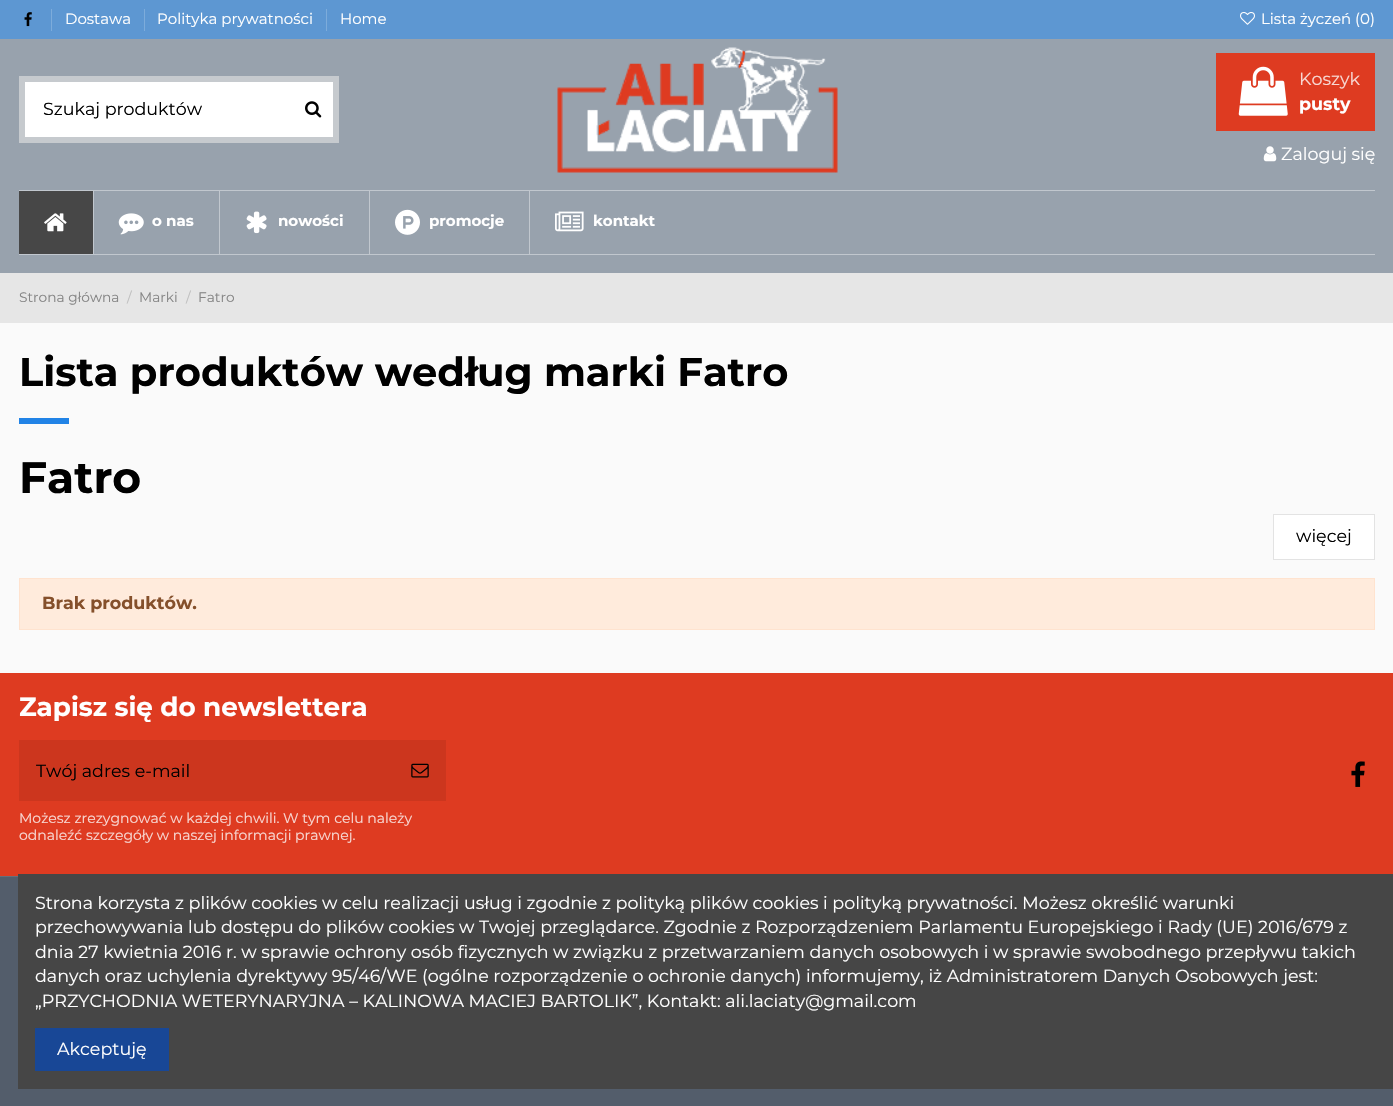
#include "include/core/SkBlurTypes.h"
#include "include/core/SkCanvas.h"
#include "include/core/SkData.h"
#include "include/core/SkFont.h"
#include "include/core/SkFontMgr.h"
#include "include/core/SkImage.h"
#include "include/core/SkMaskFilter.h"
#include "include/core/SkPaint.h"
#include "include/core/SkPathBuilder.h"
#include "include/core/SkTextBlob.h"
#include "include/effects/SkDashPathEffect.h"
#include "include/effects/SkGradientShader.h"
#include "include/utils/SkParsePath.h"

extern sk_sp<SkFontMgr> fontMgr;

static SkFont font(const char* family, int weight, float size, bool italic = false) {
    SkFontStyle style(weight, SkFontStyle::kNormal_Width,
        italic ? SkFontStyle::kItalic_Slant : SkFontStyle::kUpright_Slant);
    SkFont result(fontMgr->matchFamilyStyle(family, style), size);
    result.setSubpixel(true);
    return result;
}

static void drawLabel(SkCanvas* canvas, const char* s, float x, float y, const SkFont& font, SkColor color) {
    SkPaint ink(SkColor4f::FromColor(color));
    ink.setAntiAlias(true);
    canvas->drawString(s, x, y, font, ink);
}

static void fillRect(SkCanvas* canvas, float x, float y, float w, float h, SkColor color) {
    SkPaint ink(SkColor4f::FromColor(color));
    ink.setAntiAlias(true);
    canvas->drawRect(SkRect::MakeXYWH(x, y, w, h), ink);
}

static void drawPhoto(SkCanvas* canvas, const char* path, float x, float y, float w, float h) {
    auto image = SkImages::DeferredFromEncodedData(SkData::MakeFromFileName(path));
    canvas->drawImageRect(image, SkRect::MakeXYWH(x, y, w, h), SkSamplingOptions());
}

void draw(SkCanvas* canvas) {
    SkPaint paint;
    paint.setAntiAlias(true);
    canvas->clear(0xFFFAFAFA);
    fillRect(canvas, 0, 39, 1393, 234, 0xFF98A2AD);
    fillRect(canvas, 0, 0, 1393, 39, 0xFF5D97D2);
    drawPhoto(canvas, "assets/img1.png", 24, 12, 8, 15);
    fillRect(canvas, 51, 9, 1, 22, 0xFF7DACDB);
    SkFont font1 = font("Montserrat", 400, 15);
    drawLabel(canvas, "Dostawa", 65, 24, font1, 0xFFFFFFFF);
    fillRect(canvas, 144, 9, 1, 22, 0xFF7DACDB);
    drawLabel(canvas, "Polityka prywatności", 157, 24, font1, 0xFFFFFFFF);
    fillRect(canvas, 326, 9, 1, 22, 0xFF7DACDB);
    drawLabel(canvas, "Home", 340, 24, font1, 0xFFFFFFFF);
    drawPhoto(canvas, "assets/img2.png", 1240, 12, 15, 13);
    drawLabel(canvas, "Lista życzeń (0)", 1261, 24, font1, 0xFFFFFFFF);
    paint.setColor(0xFFFFFFFF);
    canvas->drawRect(SkRect::MakeXYWH(22, 79, 314, 61), paint);
    paint.setStroke(true);
    paint.setStrokeWidth(6);
    paint.setColor(0xFFC6CACE);
    canvas->drawRect(SkRect::MakeXYWH(22, 79, 314, 61), paint);
    SkFont font2 = font("Montserrat", 400, 17.5f);
    drawLabel(canvas, "Szukaj produktów", 43, 115, font2, 0xFF000000);
    drawPhoto(canvas, "assets/img3.png", 305, 101, 17, 17);
    drawPhoto(canvas, "assets/img4.png", 557, 47, 281, 126);
    fillRect(canvas, 1216, 53, 159, 78, 0xFFDE3B21);
    drawPhoto(canvas, "assets/img5.png", 1238, 66, 50, 50);
    drawLabel(canvas, "Koszyk", 1299, 85, font2, 0xFFF8D8D3);
    SkFont font3 = font("Montserrat", 700, 17.5f);
    drawLabel(canvas, "pusty", 1299, 110, font3, 0xFFFFFFFF);
    drawPhoto(canvas, "assets/img6.png", 1263, 146, 14, 16);
    drawLabel(canvas, "Zaloguj się", 1281, 160, font2, 0xFFFFFFFF);
    fillRect(canvas, 19, 190, 1356, 1, 0xFFC1C7CE);
    fillRect(canvas, 19, 254, 1356, 1, 0xFFC1C7CE);
    fillRect(canvas, 19, 191, 74, 63, 0xFF474747);
    drawPhoto(canvas, "assets/img7.png", 44, 213, 23, 19);
    fillRect(canvas, 93, 191, 1, 63, 0xFFC1C7CE);
    drawPhoto(canvas, "assets/img8.png", 118, 213, 26, 22);
    SkFont font4 = font("Montserrat", 700, 15);
    drawLabel(canvas, "o nas", 152, 226, font4, 0xFFFFFFFF);
    fillRect(canvas, 219, 191, 1, 63, 0xFFC1C7CE);
    drawPhoto(canvas, "assets/img9.png", 246, 211, 21, 23);
    drawLabel(canvas, "nowości", 278, 226, font4, 0xFFFFFFFF);
    fillRect(canvas, 369, 191, 1, 63, 0xFFC1C7CE);
    drawPhoto(canvas, "assets/img10.png", 395, 209, 25, 26);
    drawLabel(canvas, "promocje", 429, 226, font4, 0xFFFFFFFF);
    fillRect(canvas, 529, 191, 1, 63, 0xFFC1C7CE);
    drawPhoto(canvas, "assets/img11.png", 555, 211, 29, 21);
    drawLabel(canvas, "kontakt", 593, 226, font4, 0xFFFFFFFF);
    fillRect(canvas, 0, 273, 1393, 50, 0xFFE6E6E6);
    SkFont font5 = font("Montserrat", 400, 13.75f);
    drawLabel(canvas, "Strona główna", 19, 302, font5, 0xFF858585);
    drawLabel(canvas, "/", 127, 302, font5, 0xFFBFBFBF);
    drawLabel(canvas, "Marki", 139, 302, font5, 0xFF858585);
    drawLabel(canvas, "/", 186, 302, font5, 0xFFBFBFBF);
    drawLabel(canvas, "Fatro", 198, 302, font5, 0xFF858585);
    SkFont font6 = font("Montserrat", 700, 40);
    drawLabel(canvas, "Lista produktów według marki Fatro", 19, 386, font6, 0xFF000000);
    fillRect(canvas, 19, 418, 50, 6, 0xFF2183E6);
    SkFont font7 = font("Montserrat", 700, 44);
    drawLabel(canvas, "Fatro", 19, 493, font7, 0xFF000000);
    paint.setStroke(false);
    paint.setColor(0xFFFFFFFF);
    canvas->drawRect(SkRect::MakeXYWH(1273.5f, 514.5f, 101, 45), paint);
    paint.setStroke(true);
    paint.setStrokeWidth(1);
    paint.setColor(0xFFE3E3E3);
    canvas->drawRect(SkRect::MakeXYWH(1273.5f, 514.5f, 101, 45), paint);
    drawLabel(canvas, "więcej", 1296, 542, font2, 0xFF000000);
    paint.setStroke(false);
    paint.setColor(0xFFFFEBDC);
    canvas->drawRect(SkRect::MakeXYWH(19.5f, 578.5f, 1355, 51), paint);
    paint.setStroke(true);
    paint.setColor(0xFFFFE3CF);
    canvas->drawRect(SkRect::MakeXYWH(19.5f, 578.5f, 1355, 51), paint);
    drawLabel(canvas, "Brak produktów.", 42, 609, font3, 0xFF85502B);
    fillRect(canvas, 0, 877, 1393, 229, 0xFF535D6B);
    fillRect(canvas, 0, 673, 1393, 203, 0xFFDE3B21);
    SkFont font8 = font("Montserrat", 700, 26.25f);
    drawLabel(canvas, "Zapisz się do newslettera", 19, 716, font8, 0xFFFFFFFF);
    fillRect(canvas, 19, 740, 427, 61, 0xFFCC361E);
    drawLabel(canvas, "Twój adres e-mail", 36, 777, font2, 0xFF000000);
    drawPhoto(canvas, "assets/img12.png", 411, 763, 18, 15);
    SkFont font9 = font("Montserrat", 400, 14);
    drawLabel(canvas, "Możesz zrezygnować w każdej chwili. W tym celu należy", 19, 823, font9, 0xFFF8D8D3);
    drawLabel(canvas, "odnaleźć szczegóły w naszej informacji prawnej.", 19, 840, font9, 0xFFF8D8D3);
    drawPhoto(canvas, "assets/img13.png", 1351, 761, 14, 26);
    fillRect(canvas, 0, 876, 18, 1, 0xFF676E79);
    fillRect(canvas, 18, 874, 1375, 215, 0xFF464646);
    drawLabel(canvas, "Strona korzysta z plików cookies w celu realizacji usług i zgodnie z polityką plików cookies i polityką prywatności. Możesz określić warunki", 35, 909, font2, 0xFFFFFFFF);
    drawLabel(canvas, "przechowywania lub dostępu do plików cookies w Twojej przeglądarce. Zgodnie z Rozporządzeniem Parlamentu Europejskiego i Rady (UE) 2016/679 z", 35, 933, font2, 0xFFFFFFFF);
    drawLabel(canvas, "dnia 27 kwietnia 2016 r. w sprawie ochrony osób fizycznych w związku z przetwarzaniem danych osobowych i w sprawie swobodnego przepływu takich", 35, 958, font2, 0xFFFFFFFF);
    drawLabel(canvas, "danych oraz uchylenia dyrektywy 95/46/WE (ogólne rozporządzenie o ochronie danych) informujemy, iż Administratorem Danych Osobowych jest:", 35, 982, font2, 0xFFFFFFFF);
    drawLabel(canvas, "„PRZYCHODNIA WETERYNARYJNA – KALINOWA MACIEJ BARTOLIK”, Kontakt: ali.laciaty@gmail.com", 35, 1007, font2, 0xFFFFFFFF);
    fillRect(canvas, 35, 1028, 134, 43, 0xFF184796);
    drawLabel(canvas, "Akceptuję", 57, 1055, font2, 0xFFFFFFFF);
}
